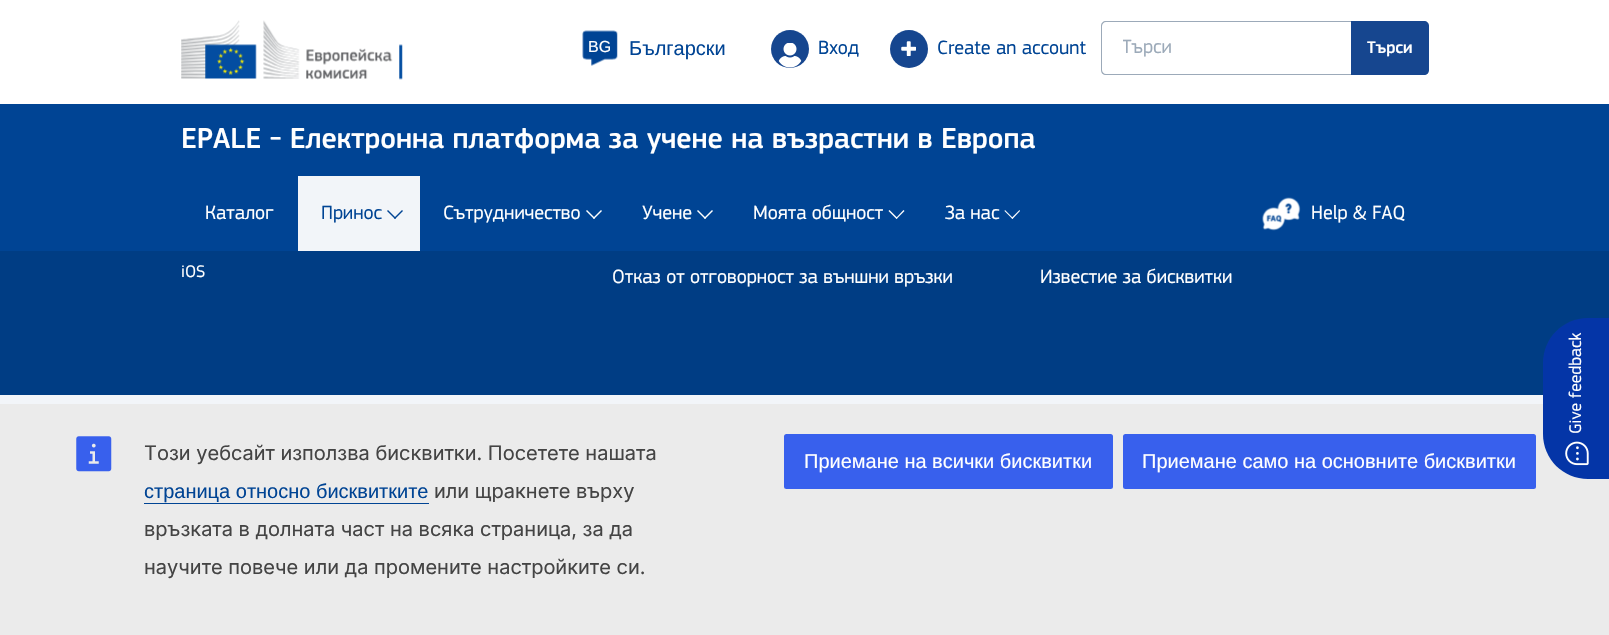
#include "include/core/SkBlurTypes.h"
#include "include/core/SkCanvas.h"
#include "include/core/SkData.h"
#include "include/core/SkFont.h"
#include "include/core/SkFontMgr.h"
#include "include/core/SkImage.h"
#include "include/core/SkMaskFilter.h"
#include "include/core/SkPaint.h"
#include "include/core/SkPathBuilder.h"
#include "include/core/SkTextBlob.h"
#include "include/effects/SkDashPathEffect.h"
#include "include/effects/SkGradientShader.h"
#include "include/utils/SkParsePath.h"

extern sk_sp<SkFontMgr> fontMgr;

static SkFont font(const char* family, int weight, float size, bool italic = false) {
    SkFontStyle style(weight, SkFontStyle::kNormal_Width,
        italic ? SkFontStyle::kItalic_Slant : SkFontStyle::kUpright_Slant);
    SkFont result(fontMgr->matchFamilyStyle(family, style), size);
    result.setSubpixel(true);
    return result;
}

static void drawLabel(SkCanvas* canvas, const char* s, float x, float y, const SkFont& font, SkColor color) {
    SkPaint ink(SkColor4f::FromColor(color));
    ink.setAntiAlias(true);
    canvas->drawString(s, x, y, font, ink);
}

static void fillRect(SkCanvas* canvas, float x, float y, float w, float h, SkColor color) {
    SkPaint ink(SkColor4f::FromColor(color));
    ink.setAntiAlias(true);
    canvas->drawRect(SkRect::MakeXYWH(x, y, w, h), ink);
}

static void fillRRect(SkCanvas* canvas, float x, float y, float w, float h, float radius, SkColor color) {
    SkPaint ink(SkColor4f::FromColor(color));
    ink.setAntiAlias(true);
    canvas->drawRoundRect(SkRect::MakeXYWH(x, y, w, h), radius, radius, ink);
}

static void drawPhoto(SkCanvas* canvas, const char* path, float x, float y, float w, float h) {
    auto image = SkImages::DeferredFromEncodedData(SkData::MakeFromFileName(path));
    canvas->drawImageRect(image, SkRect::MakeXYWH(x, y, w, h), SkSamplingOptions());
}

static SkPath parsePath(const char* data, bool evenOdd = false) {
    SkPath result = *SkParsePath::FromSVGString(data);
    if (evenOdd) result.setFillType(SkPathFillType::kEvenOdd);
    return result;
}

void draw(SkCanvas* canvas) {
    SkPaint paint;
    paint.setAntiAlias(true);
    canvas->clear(0xFFF2F5F9);
    fillRect(canvas, 0, 0, 1609, 104, 0xFFFFFFFF);
    drawPhoto(canvas, "assets/img1.png", 181, 20, 222, 60);
    drawPhoto(canvas, "assets/img2.png", 582, 30, 36, 36);
    SkFont font1 = font("Liberation Sans", 400, 16);
    drawLabel(canvas, "BG", 588, 52, font1, 0xFFFFFFFF);
    SkFont font2 = font("Liberation Sans", 400, 20);
    drawLabel(canvas, "Български", 629, 55, font2, 0xFF004494);
    paint.setColor(0xFF16468F);
    canvas->drawCircle(790, 49, 19, paint);
    drawPhoto(canvas, "assets/img3.png", 778, 43, 24, 25);
    SkFont font3 = font("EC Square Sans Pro", 400, 20);
    drawLabel(canvas, "Вход", 818, 54, font3, 0xFF004494);
    canvas->drawCircle(909, 49, 19, paint);
    drawPhoto(canvas, "assets/img4.png", 901, 41, 15, 15);
    drawLabel(canvas, "Create an account", 937, 54, font3, 0xFF004494);
    paint.setColor(0xFF9CAAB9);
    canvas->drawPath(parsePath("M1106 21H1351V75H1106C1103 75 1101 73 1101 70V26C1101 23 1103 21 1106 21ZM1106 22H1351V74H1106C1104 74 1102 72 1102 70V26C1102 24 1104 22 1106 22Z", true), paint);
    canvas->save();
    canvas->clipRect(SkRect::MakeXYWH(1123, 36, 208, 24));
    drawLabel(canvas, "Търси", 1122, 53, font3, 0xFF9CAAB9);
    canvas->restore();
    paint.setColor(0xFF16468F);
    canvas->drawPath(parsePath("M1351 21H1424C1427 21 1429 23 1429 26V70C1429 73 1427 75 1424 75H1351Z"), paint);
    SkFont font4 = font("EC Square Sans Pro", 500, 17.5f);
    drawLabel(canvas, "Търси", 1367, 53, font4, 0xFFFFFFFF);
    fillRect(canvas, 0, 251, 1609, 144, 0xFF003D84);
    fillRect(canvas, 0, 404, 1609, 231, 0xFFEBEBEB);
    paint.setColor(0xFF0435A7);
    canvas->drawPath(parsePath("M1588 318H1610V479H1588C1563 479 1543 459 1543 434V363C1543 338 1563 318 1588 318Z"), paint);
    SkFont font5 = font("EC Square Sans Pro", 400, 17.5f);
    canvas->save();
    canvas->rotate(-90, 1581, 434);
    drawLabel(canvas, "Give feedback", 1581, 434, font5, 0xFFFFFFFF);
    canvas->restore();
    drawPhoto(canvas, "assets/img5.png", 1565, 441, 24, 25);
    fillRect(canvas, 0, 104, 1609, 147, 0xFF004494);
    SkFont font6 = font("EC Square Sans Pro", 500, 30);
    drawLabel(canvas, "EPALE - Електронна платформа за учене на възрастни в Европа", 181, 148, font6, 0xFFFFFFFF);
    drawLabel(canvas, "Каталог", 205, 219, font3, 0xFFFFFFFF);
    fillRect(canvas, 298, 176, 122, 75, 0xFFF2F5F9);
    drawLabel(canvas, "Принос", 321, 219, font3, 0xFF004494);
    paint.setColor(0xFF004494);
    canvas->drawPath(parsePath("M402 210L403 211L395 219L394 218Z"), paint);
    canvas->drawPath(parsePath("M388 210L396 218L395 219L387 211Z"), paint);
    drawLabel(canvas, "Сътрудничество", 443, 219, font3, 0xFFFFFFFF);
    paint.setColor(0xFFFFFFFF);
    canvas->drawPath(parsePath("M601 210L602 211L594 219L593 218Z"), paint);
    canvas->drawPath(parsePath("M587 210L595 218L594 219L586 211Z"), paint);
    drawLabel(canvas, "Учене", 642, 219, font3, 0xFFFFFFFF);
    canvas->drawPath(parsePath("M712 210L713 211L705 219L704 218Z"), paint);
    canvas->drawPath(parsePath("M698 210L706 218L705 219L697 211Z"), paint);
    drawLabel(canvas, "Моята общност", 753, 219, font3, 0xFFFFFFFF);
    canvas->drawPath(parsePath("M903.5 210L904.5 211L896.5 219L896 218Z"), paint);
    canvas->drawPath(parsePath("M889.5 210L897.5 218L896.5 219L888.5 211Z"), paint);
    drawLabel(canvas, "За нас", 945, 219, font3, 0xFFFFFFFF);
    canvas->drawPath(parsePath("M1019.5 210L1020 211L1012.5 219L1011.5 218Z"), paint);
    canvas->drawPath(parsePath("M1005 210L1013 218L1012.5 219L1004.5 211Z"), paint);
    drawPhoto(canvas, "assets/img6.png", 1262, 197, 39, 34);
    drawLabel(canvas, "Help & FAQ", 1311, 219, font3, 0xFFFFFFFF);
    drawLabel(canvas, "iOS", 181, 277, font5, 0xFFFFFFFF);
    drawLabel(canvas, "Отказ от отговорност за външни връзки", 612, 283, font3, 0xFFFFFFFF);
    drawLabel(canvas, "Известие за бисквитки", 1040, 283, font3, 0xFFFFFFFF);
    drawPhoto(canvas, "assets/img7.png", 76, 436, 36, 36);
    SkFont font7 = font("Inter", 400, 20);
    drawLabel(canvas, "Този уебсайт използва бисквитки. Посетете нашата", 144, 460, font7, 0xFF444444);
    drawLabel(canvas, "страница относно бисквитките", 144, 498, font2, 0xFF004494);
    fillRect(canvas, 144, 503, 285, 1, 0xFF004494);
    drawLabel(canvas, "или щракнете върху", 434, 498, font7, 0xFF444444);
    drawLabel(canvas, "връзката в долната част на всяка страница, за да", 144, 536, font7, 0xFF444444);
    drawLabel(canvas, "научите повече или да промените настройките си.", 144, 574, font7, 0xFF444444);
    fillRRect(canvas, 784, 434, 329, 55, 2.5f, 0xFF3860ED);
    drawLabel(canvas, "Приемане на всички бисквитки", 804, 468, font2, 0xFFFFFFFF);
    fillRRect(canvas, 1123, 434, 413, 55, 2.5f, 0xFF3860ED);
    drawLabel(canvas, "Приемане само на основните бисквитки", 1142, 468, font2, 0xFFFFFFFF);
}
